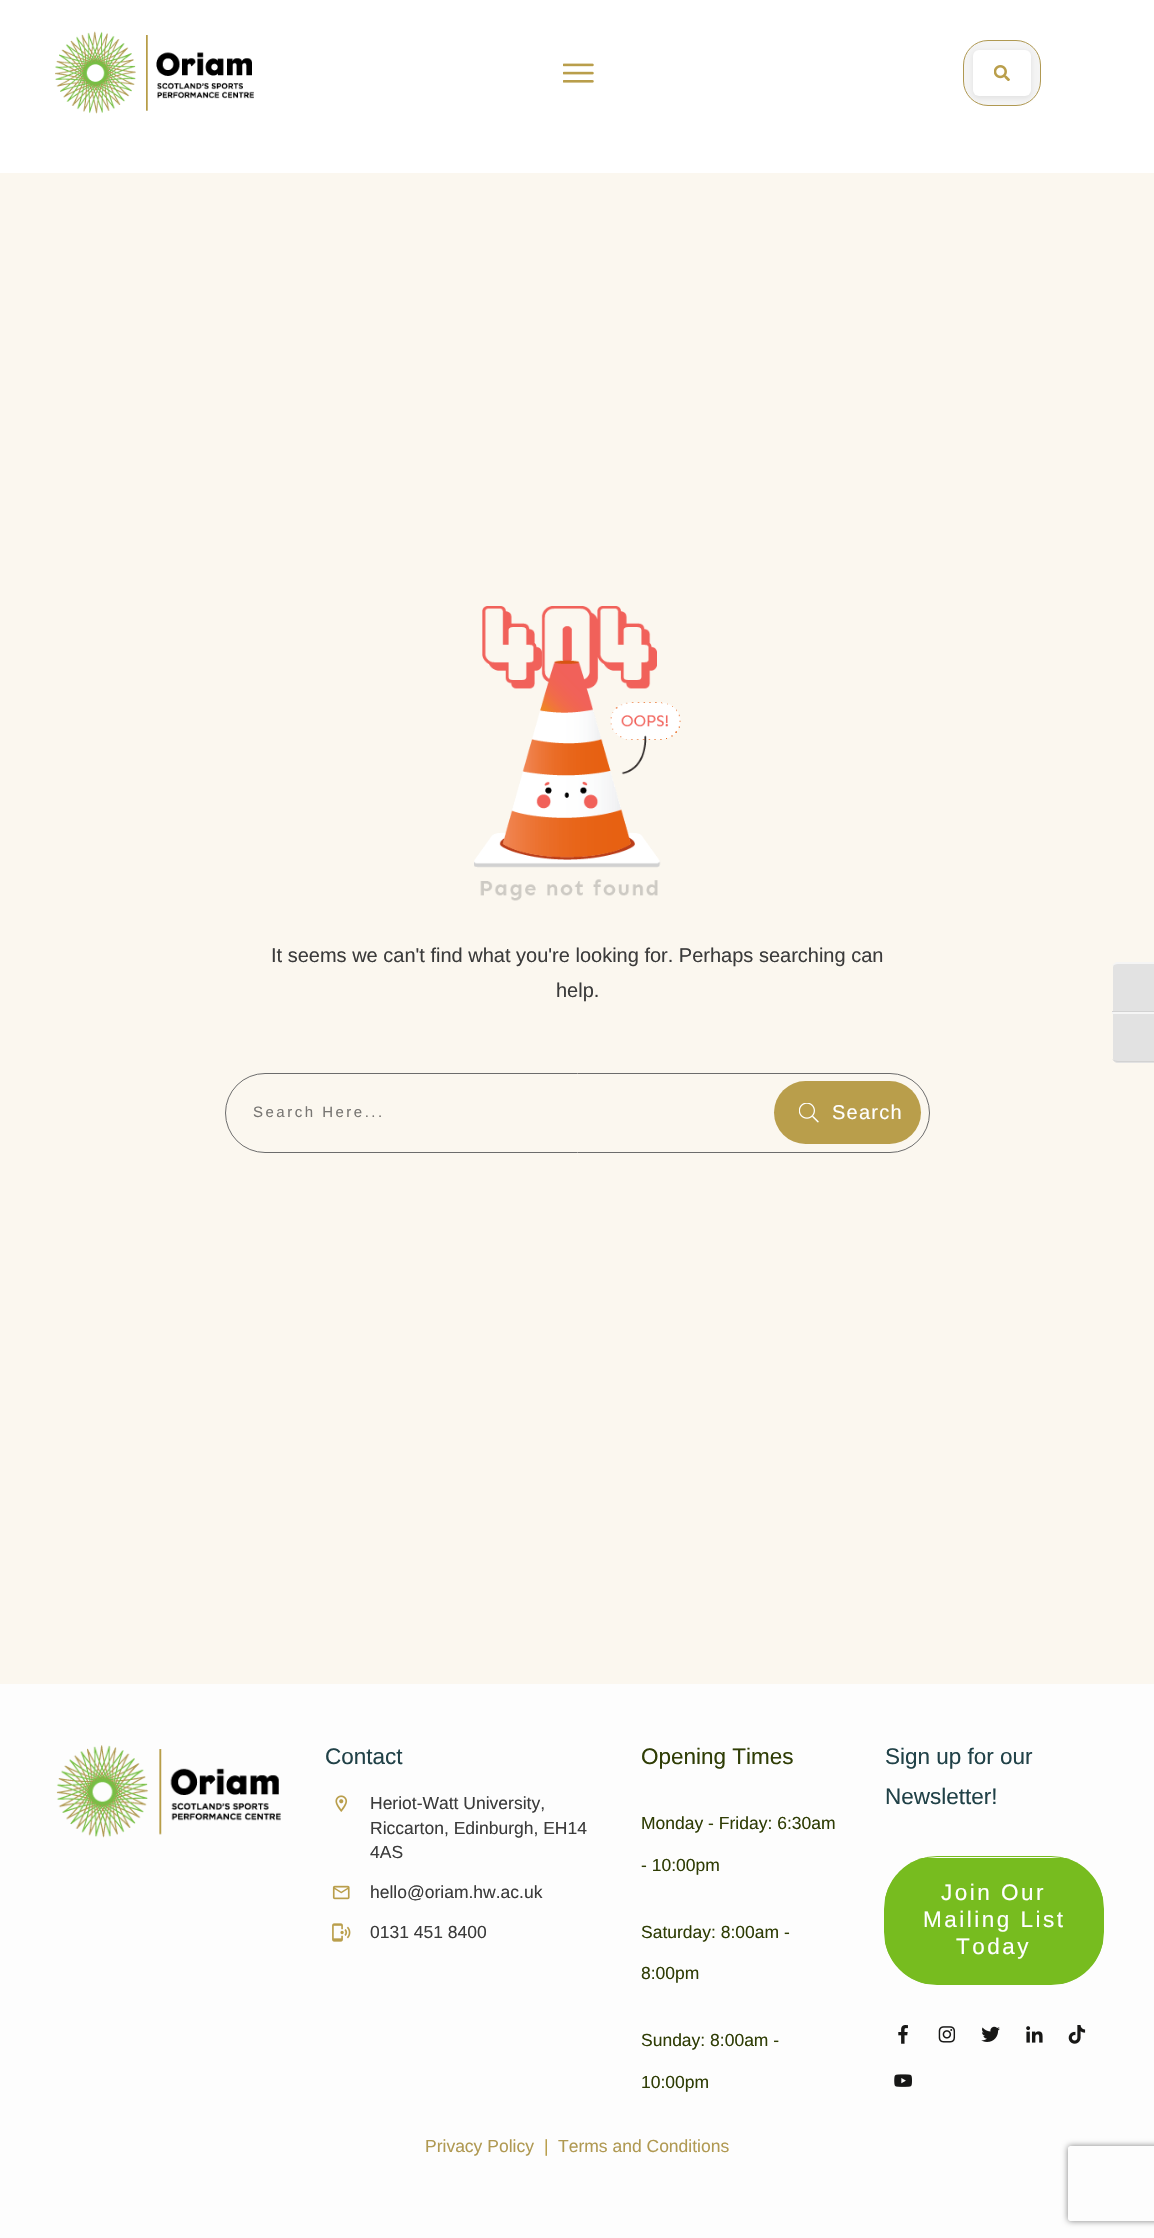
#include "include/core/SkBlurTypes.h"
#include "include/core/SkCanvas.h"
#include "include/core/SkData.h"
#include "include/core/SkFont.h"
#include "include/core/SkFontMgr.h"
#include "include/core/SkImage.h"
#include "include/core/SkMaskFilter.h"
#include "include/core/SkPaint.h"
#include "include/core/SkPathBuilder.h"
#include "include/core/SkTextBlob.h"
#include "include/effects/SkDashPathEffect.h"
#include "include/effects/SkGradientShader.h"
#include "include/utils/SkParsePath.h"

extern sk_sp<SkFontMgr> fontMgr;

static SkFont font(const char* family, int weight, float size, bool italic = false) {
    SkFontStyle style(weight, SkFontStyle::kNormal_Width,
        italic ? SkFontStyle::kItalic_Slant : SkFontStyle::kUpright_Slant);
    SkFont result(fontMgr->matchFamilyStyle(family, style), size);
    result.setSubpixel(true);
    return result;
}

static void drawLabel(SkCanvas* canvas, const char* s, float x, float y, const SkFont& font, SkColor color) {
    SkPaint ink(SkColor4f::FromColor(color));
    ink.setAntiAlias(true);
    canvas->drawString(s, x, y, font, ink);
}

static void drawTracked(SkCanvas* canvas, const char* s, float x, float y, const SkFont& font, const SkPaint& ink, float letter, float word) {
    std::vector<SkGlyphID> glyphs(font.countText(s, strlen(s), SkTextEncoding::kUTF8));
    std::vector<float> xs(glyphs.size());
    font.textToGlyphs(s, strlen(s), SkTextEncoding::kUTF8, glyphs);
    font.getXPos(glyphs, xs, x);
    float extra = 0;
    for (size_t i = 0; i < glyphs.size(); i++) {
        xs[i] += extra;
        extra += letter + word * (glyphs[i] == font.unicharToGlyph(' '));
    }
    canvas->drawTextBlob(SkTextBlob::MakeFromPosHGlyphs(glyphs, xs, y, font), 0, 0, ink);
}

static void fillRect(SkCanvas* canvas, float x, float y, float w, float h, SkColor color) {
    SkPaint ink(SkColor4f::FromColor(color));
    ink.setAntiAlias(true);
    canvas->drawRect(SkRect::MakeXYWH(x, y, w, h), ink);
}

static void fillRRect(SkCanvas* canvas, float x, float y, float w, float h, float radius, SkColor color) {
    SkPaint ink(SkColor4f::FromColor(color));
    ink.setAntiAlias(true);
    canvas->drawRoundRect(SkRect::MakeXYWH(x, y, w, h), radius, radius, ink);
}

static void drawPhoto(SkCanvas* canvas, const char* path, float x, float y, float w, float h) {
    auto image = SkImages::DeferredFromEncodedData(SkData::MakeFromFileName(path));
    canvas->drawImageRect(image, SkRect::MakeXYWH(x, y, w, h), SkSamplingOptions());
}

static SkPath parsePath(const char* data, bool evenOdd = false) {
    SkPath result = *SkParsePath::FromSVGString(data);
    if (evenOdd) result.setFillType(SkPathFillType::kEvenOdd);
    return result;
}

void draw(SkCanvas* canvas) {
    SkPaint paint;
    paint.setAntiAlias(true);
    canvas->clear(0xFFFBF7EF);
    fillRect(canvas, 0, 0, 1154, 173, 0xFFFFFFFF);
    drawPhoto(canvas, "assets/img1.png", 55, 31, 199, 83);
    drawPhoto(canvas, "assets/img2.png", 563, 63, 31, 20);
    paint.setColor(0xFFF4F4F4);
    canvas->drawRoundRect(SkRect::MakeXYWH(963.5f, 40.5f, 77, 65), 24.5f, 24.5f, paint);
    paint.setStroke(true);
    paint.setStrokeWidth(1);
    paint.setColor(0xFFB09952);
    canvas->drawRoundRect(SkRect::MakeXYWH(963.5f, 40.5f, 77, 65), 24.5f, 24.5f, paint);
    paint.setStroke(false);
    paint.setColor(0x14000000);
    paint.setMaskFilter(SkMaskFilter::MakeBlur(kNormal_SkBlurStyle, 2.5f));
    canvas->drawRoundRect(SkRect::MakeXYWH(973, 51, 58, 47), 6, 6, paint);
    paint.setMaskFilter(nullptr);
    fillRRect(canvas, 973, 50, 58, 46, 6, 0xFFFFFFFF);
    drawPhoto(canvas, "assets/img3.png", 994, 65, 16, 16);
    drawPhoto(canvas, "assets/img4.png", 474, 606, 207, 295);
    SkFont font1 = font("Liberation Sans", 400, 20);
    drawLabel(canvas, "It seems we can't find what you're looking for. Perhaps searching can", 271, 962, font1, 0xFF3B3B3B);
    drawLabel(canvas, "help.", 556, 997, font1, 0xFF3B3B3B);
    paint.setStroke(true);
    paint.setColor(0xFF6C6C6C);
    canvas->drawRoundRect(SkRect::MakeXYWH(225.5f, 1073.5f, 704, 79), 39.5f, 39.5f, paint);
    SkFont font2 = font("Liberation Sans", 400, 15);
    paint.setStroke(false);
    paint.setColor(0xFF787673);
    drawTracked(canvas, "Search Here...", 253, 1117, font2, paint, 2.5f, 0);
    fillRRect(canvas, 774, 1081, 147, 63, 31.5f, 0xFFB99E4B);
    drawPhoto(canvas, "assets/img5.png", 799, 1103, 20, 20);
    paint.setColor(0xFFFFFFFF);
    drawTracked(canvas, "Search", 832, 1119, font1, paint, 1.25f, 0);
    fillRect(canvas, 0, 1684, 1154, 554, 0xFFFDFDFD);
    drawPhoto(canvas, "assets/img6.png", 56, 1745, 225, 93);
    SkFont font3 = font("Liberation Sans", 400, 22.5f);
    drawLabel(canvas, "Contact", 325, 1764, font3, 0xFF204147);
    drawPhoto(canvas, "assets/img7.png", 335, 1795, 13, 17);
    SkFont font4 = font("Liberation Sans", 400, 17.5f);
    drawLabel(canvas, "Heriot-Watt University,", 370, 1809, font4, 0xFF3B3B3B);
    drawLabel(canvas, "Riccarton, Edinburgh, EH14", 370, 1834, font4, 0xFF3B3B3B);
    drawLabel(canvas, "4AS", 370, 1858, font4, 0xFF3B3B3B);
    drawPhoto(canvas, "assets/img8.png", 332, 1885, 18, 15);
    drawLabel(canvas, "hello@oriam.hw.ac.uk", 370, 1898, font4, 0xFF3B3B3B);
    drawPhoto(canvas, "assets/img9.png", 332, 1923, 19, 19);
    drawLabel(canvas, "0131 451 8400", 370, 1938, font4, 0xFF3B3B3B);
    drawLabel(canvas, "Opening Times", 641, 1764, font3, 0xFF2F3D05);
    drawLabel(canvas, "Monday - Friday: 6:30am", 641, 1829, font4, 0xFF2F3D05);
    drawLabel(canvas, "- 10:00pm", 641, 1871, font4, 0xFF2F3D05);
    drawLabel(canvas, "Saturday: 8:00am -", 641, 1938, font4, 0xFF2F3D05);
    drawLabel(canvas, "8:00pm", 641, 1979, font4, 0xFF2F3D05);
    drawLabel(canvas, "Sunday: 8:00am -", 641, 2046, font4, 0xFF2F3D05);
    drawLabel(canvas, "10:00pm", 641, 2088, font4, 0xFF2F3D05);
    drawLabel(canvas, "Sign up for our", 885, 1764, font3, 0xFF204147);
    drawLabel(canvas, "Newsletter!", 885, 1804, font3, 0xFF204147);
    canvas->save();
    canvas->clipPath(parsePath("M937 1856H1051C1080.5 1856 1104 1879.5 1104 1909V1932C1104 1961.5 1080.5 1985 1051 1985H937C907.5 1985 884 1961.5 884 1932V1909C884 1879.5 907.5 1856 937 1856Z"), true);
    fillRect(canvas, 885, 1858, 218, 126, 0xFF77BC1F);
    canvas->restore();
    paint.setStroke(true);
    paint.setColor(0xFF77BC1F);
    canvas->drawRoundRect(SkRect::MakeXYWH(884.5f, 1856.5f, 219, 128), 52.5f, 52.5f, paint);
    paint.setStroke(false);
    paint.setColor(0xFFFFFFFF);
    drawTracked(canvas, "Join Our", 941, 1900, font3, paint, 2.5f, 0);
    drawTracked(canvas, "Mailing List", 923, 1927, font3, paint, 2.5f, 0);
    drawTracked(canvas, "Today", 956, 1954, font3, paint, 2.5f, 0);
    drawPhoto(canvas, "assets/img10.png", 898, 2025, 10, 19);
    drawPhoto(canvas, "assets/img11.png", 938, 2026, 18, 17);
    drawPhoto(canvas, "assets/img12.png", 981, 2026, 19, 16);
    drawPhoto(canvas, "assets/img13.png", 1026, 2026, 17, 17);
    drawPhoto(canvas, "assets/img14.png", 1068, 2025, 18, 19);
    drawPhoto(canvas, "assets/img15.png", 894, 2074, 18, 13);
    drawLabel(canvas, "Privacy Policy", 425, 2152, font4, 0xFFB09952);
    drawLabel(canvas, "|", 544, 2152, font4, 0xFFB99E4B);
    drawLabel(canvas, "Terms and Conditions", 558, 2152, font4, 0xFFB09952);
    paint.setColor(0xFFE2E2E2);
    canvas->drawPath(parsePath("M1118 963H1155V1013H1113V968C1113 965 1115 963 1118 963Z"), paint);
    paint.setColor(0xFFF5F5F5);
    canvas->drawPath(parsePath("M1118 964C1116 964 1113 965 1112 966C1112 965 1115 963 1116 962H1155V964Z"), paint);
    fillRect(canvas, 1112, 1011, 42, 1, 0xFFD2D2D2);
    paint.setColor(0xFFE2E2E2);
    canvas->drawPath(parsePath("M1113 1013H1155V1063H1118C1115 1063 1113 1061 1113 1058Z"), paint);
    fillRect(canvas, 1112, 1012, 42, 2, 0xFFF5F5F5);
    paint.setColor(0xFFD2D2D2);
    canvas->drawPath(parsePath("M1112 1059C1113 1060 1116 1061 1118 1061H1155V1062H1118C1116 1062 1113 1061 1112 1059Z"), paint);
    canvas->save();
    canvas->clipPath(parsePath("M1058 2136H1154V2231H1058ZM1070.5 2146H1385.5C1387 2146 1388 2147 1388 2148.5V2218.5C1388 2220 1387 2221 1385.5 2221H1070.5C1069 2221 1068 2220 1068 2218.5V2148.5C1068 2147 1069 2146 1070.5 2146Z", true), true);
    paint.setColor(0xFF808080);
    paint.setMaskFilter(SkMaskFilter::MakeBlur(kNormal_SkBlurStyle, 3));
    canvas->drawRoundRect(SkRect::MakeXYWH(1068, 2146, 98, 75), 2.5f, 2.5f, paint);
    paint.setMaskFilter(nullptr);
    canvas->restore();
}
